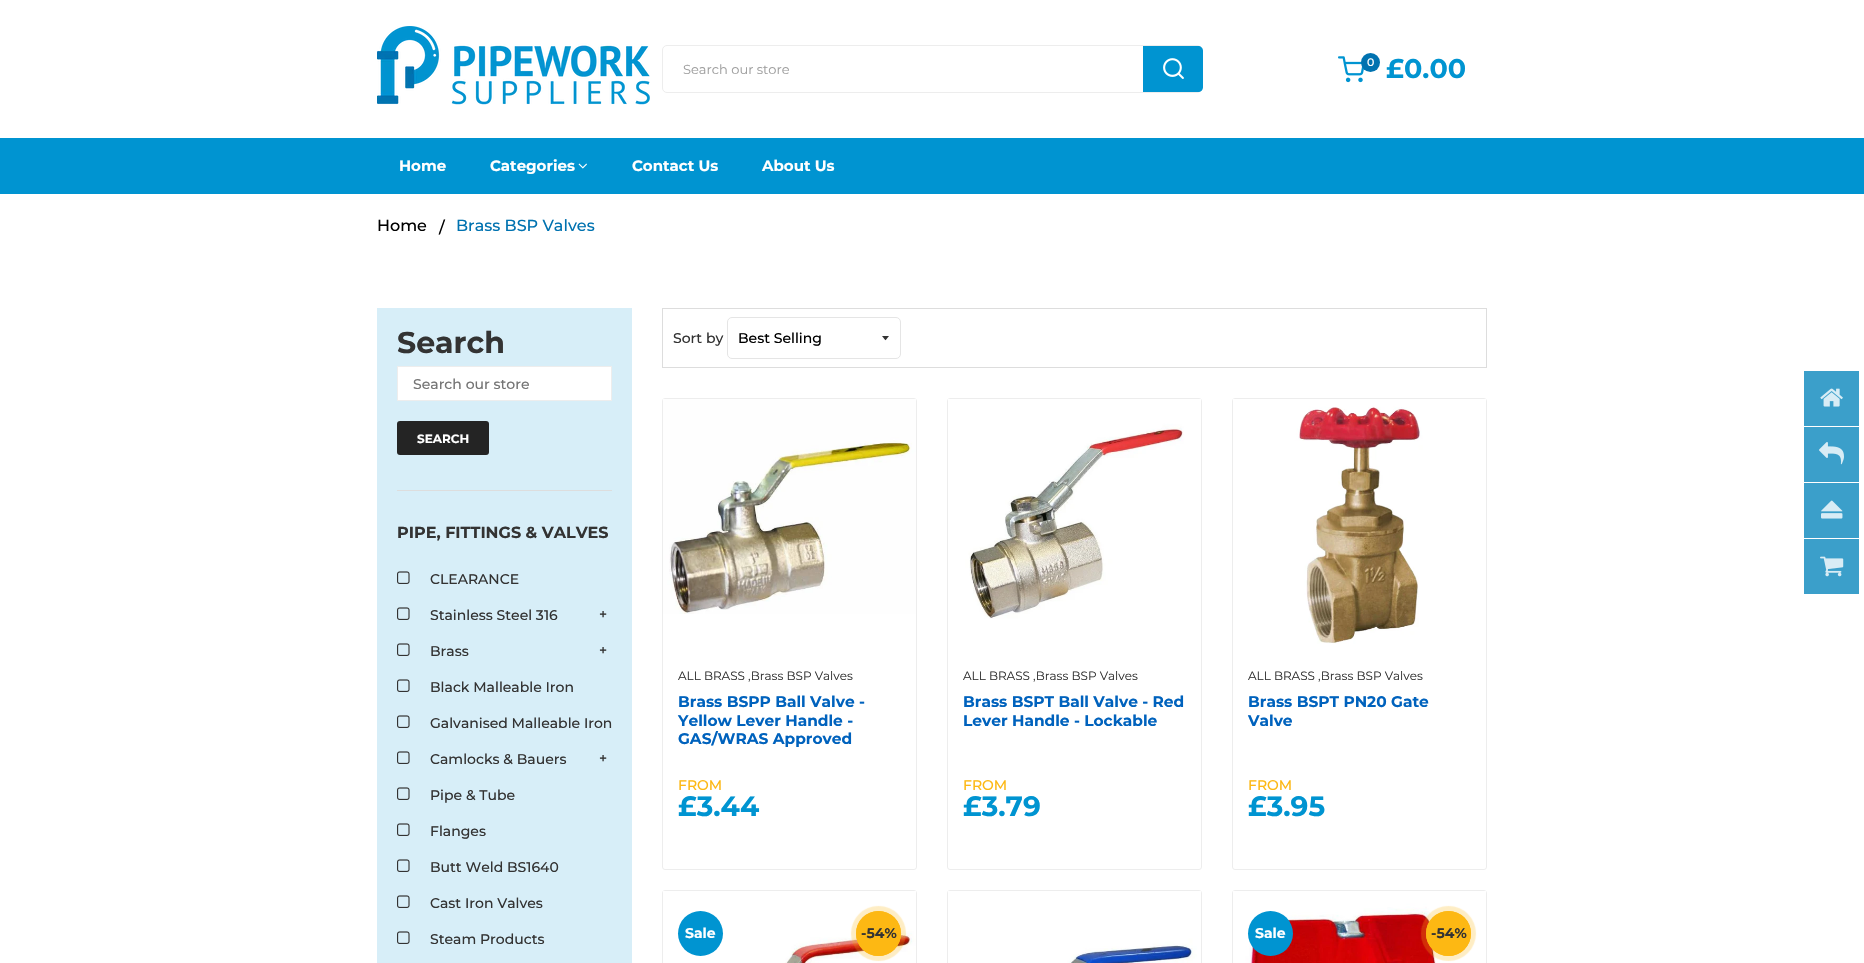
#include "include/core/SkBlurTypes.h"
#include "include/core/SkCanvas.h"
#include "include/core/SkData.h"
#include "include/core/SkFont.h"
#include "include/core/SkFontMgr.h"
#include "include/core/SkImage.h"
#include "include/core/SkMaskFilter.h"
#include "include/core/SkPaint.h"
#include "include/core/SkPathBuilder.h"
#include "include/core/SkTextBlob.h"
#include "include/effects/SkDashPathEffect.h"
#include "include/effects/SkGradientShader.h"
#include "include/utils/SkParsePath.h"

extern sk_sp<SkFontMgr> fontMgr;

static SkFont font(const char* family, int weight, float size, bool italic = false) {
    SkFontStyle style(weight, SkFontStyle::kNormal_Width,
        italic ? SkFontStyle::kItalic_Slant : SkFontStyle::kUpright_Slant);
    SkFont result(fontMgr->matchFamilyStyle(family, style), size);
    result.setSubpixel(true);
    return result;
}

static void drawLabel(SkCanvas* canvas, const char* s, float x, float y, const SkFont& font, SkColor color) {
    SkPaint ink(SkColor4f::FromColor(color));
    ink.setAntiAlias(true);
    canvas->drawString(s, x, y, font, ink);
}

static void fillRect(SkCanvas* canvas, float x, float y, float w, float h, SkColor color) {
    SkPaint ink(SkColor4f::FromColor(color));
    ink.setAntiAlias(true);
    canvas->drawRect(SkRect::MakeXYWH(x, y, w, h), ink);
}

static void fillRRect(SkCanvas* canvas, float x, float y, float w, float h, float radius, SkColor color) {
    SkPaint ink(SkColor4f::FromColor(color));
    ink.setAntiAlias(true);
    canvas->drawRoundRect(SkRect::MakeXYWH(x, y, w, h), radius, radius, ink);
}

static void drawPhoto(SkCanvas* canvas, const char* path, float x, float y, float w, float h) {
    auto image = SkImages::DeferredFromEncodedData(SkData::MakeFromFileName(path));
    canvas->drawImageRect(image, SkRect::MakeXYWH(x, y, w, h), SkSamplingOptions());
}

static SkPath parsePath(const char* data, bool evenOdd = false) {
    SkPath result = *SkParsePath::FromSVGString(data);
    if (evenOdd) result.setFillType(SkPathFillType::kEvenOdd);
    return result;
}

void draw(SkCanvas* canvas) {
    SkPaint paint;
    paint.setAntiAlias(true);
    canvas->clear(0xFFFFFFFF);
    drawPhoto(canvas, "assets/img1.png", 377, 26, 273, 79);
    paint.setStroke(true);
    paint.setStrokeWidth(1);
    paint.setColor(0xFFEDEDED);
    canvas->drawRoundRect(SkRect::MakeXYWH(662.5f, 45.5f, 539, 47), 4.5f, 4.5f, paint);
    SkFont font1 = font("Montserrat", 400, 13);
    drawLabel(canvas, "Search our store", 683, 74, font1, 0xFF9E9E9E);
    paint.setStroke(false);
    paint.setColor(0xFF0094D1);
    canvas->drawPath(parsePath("M1143 46H1198C1201 46 1203 48 1203 51V87C1203 90 1201 92 1198 92H1143Z"), paint);
    drawPhoto(canvas, "assets/img2.png", 1163, 58, 21, 21);
    drawPhoto(canvas, "assets/img3.png", 1338, 56, 26, 27);
    paint.setColor(0xFF0072B0);
    canvas->drawCircle(1370.5f, 62.5f, 9.5f, paint);
    SkFont font2 = font("Montserrat", 500, 11);
    drawLabel(canvas, "0", 1367, 66, font2, 0xFFFFFFFF);
    SkFont font3 = font("Montserrat", 700, 27);
    drawLabel(canvas, "£0.00", 1386, 78, font3, 0xFF0094D1);
    fillRect(canvas, 0, 138, 1864, 56, 0xFF0094D1);
    SkFont font4 = font("Montserrat", 700, 15);
    drawLabel(canvas, "Home", 399, 171, font4, 0xFFFFFFFF);
    drawLabel(canvas, "Categories", 490, 171, font4, 0xFFFFFFFF);
    drawPhoto(canvas, "assets/img4.png", 578, 163, 9, 6);
    drawLabel(canvas, "Contact Us", 632, 171, font4, 0xFFFFFFFF);
    drawLabel(canvas, "About Us", 762, 171, font4, 0xFFFFFFFF);
    SkFont font5 = font("Montserrat", 500, 16);
    drawLabel(canvas, "Home", 377, 231, font5, 0xFF000000);
    drawLabel(canvas, "/", 439, 233, font5, 0xFF000000);
    drawLabel(canvas, "Brass BSP Valves", 456, 231, font5, 0xFF0072B0);
    fillRect(canvas, 377, 308, 255, 655, 0xFFD7EEF8);
    fillRect(canvas, 397, 490, 215, 1, 0xFFDDDDDD);
    SkFont font6 = font("Montserrat", 700, 30);
    drawLabel(canvas, "Search", 397, 353, font6, 0xFF333333);
    paint.setColor(0xFFFFFFFF);
    canvas->drawRect(SkRect::MakeXYWH(397.5f, 366.5f, 214, 34), paint);
    paint.setStroke(true);
    paint.setColor(0xFFEDEDED);
    canvas->drawRect(SkRect::MakeXYWH(397.5f, 366.5f, 214, 34), paint);
    SkFont font7 = font("Montserrat", 500, 14);
    drawLabel(canvas, "Search our store", 413, 389, font7, 0xFF757575);
    fillRRect(canvas, 397, 421, 92, 34, 3, 0xFF242424);
    SkFont font8 = font("Montserrat", 700, 12);
    drawLabel(canvas, "SEARCH", 417, 443, font8, 0xFFFFFFFF);
    SkFont font9 = font("Montserrat", 700, 16);
    drawLabel(canvas, "PIPE, FITTINGS & VALVES", 397, 538, font9, 0xFF333333);
    drawPhoto(canvas, "assets/img5.png", 397, 571, 13, 13);
    drawLabel(canvas, "CLEARANCE", 430, 584, font7, 0xFF333333);
    drawPhoto(canvas, "assets/img5.png", 397, 607, 13, 13);
    drawLabel(canvas, "Stainless Steel 316", 430, 620, font7, 0xFF333333);
    drawLabel(canvas, "+", 599, 619, font7, 0xFF333333);
    drawPhoto(canvas, "assets/img5.png", 397, 643, 13, 13);
    drawLabel(canvas, "Brass", 430, 656, font7, 0xFF333333);
    drawLabel(canvas, "+", 599, 655, font7, 0xFF333333);
    drawPhoto(canvas, "assets/img5.png", 397, 679, 13, 13);
    drawLabel(canvas, "Black Malleable Iron", 430, 692, font7, 0xFF333333);
    drawPhoto(canvas, "assets/img5.png", 397, 715, 13, 13);
    drawLabel(canvas, "Galvanised Malleable Iron", 430, 728, font7, 0xFF333333);
    drawPhoto(canvas, "assets/img5.png", 397, 751, 13, 13);
    drawLabel(canvas, "Camlocks & Bauers", 430, 764, font7, 0xFF333333);
    drawLabel(canvas, "+", 599, 763, font7, 0xFF333333);
    drawPhoto(canvas, "assets/img5.png", 397, 787, 13, 13);
    drawLabel(canvas, "Pipe & Tube", 430, 800, font7, 0xFF333333);
    drawPhoto(canvas, "assets/img5.png", 397, 823, 13, 13);
    drawLabel(canvas, "Flanges", 430, 836, font7, 0xFF333333);
    drawPhoto(canvas, "assets/img5.png", 397, 859, 13, 13);
    drawLabel(canvas, "Butt Weld BS1640", 430, 872, font7, 0xFF333333);
    drawPhoto(canvas, "assets/img5.png", 397, 895, 13, 13);
    drawLabel(canvas, "Cast Iron Valves", 430, 908, font7, 0xFF333333);
    drawPhoto(canvas, "assets/img5.png", 397, 931, 13, 13);
    drawLabel(canvas, "Steam Products", 430, 944, font7, 0xFF333333);
    paint.setColor(0xFFDDDDDD);
    canvas->drawRect(SkRect::MakeXYWH(662.5f, 308.5f, 824, 59), paint);
    drawLabel(canvas, "Sort by", 673, 343, font7, 0xFF333333);
    paint.setStroke(false);
    paint.setColor(0xFF333333);
    canvas->drawPath(parsePath("M882 336C886.5 341.5 884.5 341.5 889 336Z"), paint);
    paint.setStroke(true);
    paint.setColor(0xFFE5E5E5);
    canvas->drawRoundRect(SkRect::MakeXYWH(727.5f, 317.5f, 173, 41), 4.5f, 4.5f, paint);
    drawLabel(canvas, "Best Selling", 738, 343, font7, 0xFF000000);
    paint.setColor(0xFFEDEDED);
    canvas->drawRoundRect(SkRect::MakeXYWH(662.5f, 398.5f, 254, 471), 2.5f, 2.5f, paint);
    drawPhoto(canvas, "assets/img6.png", 663, 399, 253, 215);
    SkFont font10 = font("Montserrat", 400, 12);
    drawLabel(canvas, "ALL BRASS ,Brass BSP Valves", 678, 680, font10, 0xFF333333);
    SkFont font11 = font("Montserrat", 700, 15.4f);
    drawLabel(canvas, "Brass BSPP Ball Valve -", 678, 707, font11, 0xFF0062BD);
    drawLabel(canvas, "Yellow Lever Handle -", 678, 726, font11, 0xFF0062BD);
    drawLabel(canvas, "GAS/WRAS Approved", 678, 744, font11, 0xFF0062BD);
    drawLabel(canvas, "FROM", 678, 790, font7, 0xFFFDB813);
    SkFont font12 = font("Montserrat", 700, 28);
    drawLabel(canvas, "£3.44", 678, 816, font12, 0xFF0094D1);
    canvas->drawRoundRect(SkRect::MakeXYWH(947.5f, 398.5f, 254, 471), 2.5f, 2.5f, paint);
    drawPhoto(canvas, "assets/img7.png", 948, 399, 253, 220);
    drawLabel(canvas, "ALL BRASS ,Brass BSP Valves", 963, 680, font10, 0xFF333333);
    drawLabel(canvas, "Brass BSPT Ball Valve - Red", 963, 707, font11, 0xFF0062BD);
    drawLabel(canvas, "Lever Handle - Lockable", 963, 726, font11, 0xFF0062BD);
    drawLabel(canvas, "FROM", 963, 790, font7, 0xFFFDB813);
    drawLabel(canvas, "£3.79", 963, 816, font12, 0xFF0094D1);
    canvas->drawRoundRect(SkRect::MakeXYWH(1232.5f, 398.5f, 254, 471), 2.5f, 2.5f, paint);
    drawPhoto(canvas, "assets/img8.png", 1233, 399, 253, 245);
    drawLabel(canvas, "ALL BRASS ,Brass BSP Valves", 1248, 680, font10, 0xFF333333);
    drawLabel(canvas, "Brass BSPT PN20 Gate", 1248, 707, font11, 0xFF0062BD);
    drawLabel(canvas, "Valve", 1248, 726, font11, 0xFF0062BD);
    drawLabel(canvas, "FROM", 1248, 790, font7, 0xFFFDB813);
    drawLabel(canvas, "£3.95", 1248, 816, font12, 0xFF0094D1);
    canvas->drawRoundRect(SkRect::MakeXYWH(662.5f, 890.5f, 254, 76), 2.5f, 2.5f, paint);
    drawPhoto(canvas, "assets/img9.png", 663, 891, 253, 72);
    paint.setStroke(false);
    paint.setColor(0xFF0094D1);
    canvas->drawCircle(700.5f, 933.5f, 22.5f, paint);
    SkFont font13 = font("Montserrat", 700, 14);
    drawLabel(canvas, "Sale", 685, 938, font13, 0xFFFFFFFF);
    paint.setColor(0x40FDB813);
    paint.setMaskFilter(SkMaskFilter::MakeBlur(kNormal_SkBlurStyle, 0.5f));
    canvas->drawRoundRect(SkRect::MakeXYWH(851, 906, 55, 55), 27.5f, 27.5f, paint);
    paint.setMaskFilter(nullptr);
    paint.setColor(0xFFFDB813);
    canvas->drawCircle(878.5f, 933.5f, 22.5f, paint);
    drawLabel(canvas, "-54%", 861, 938, font13, 0xFF333333);
    paint.setStroke(true);
    paint.setStrokeWidth(2);
    canvas->drawCircle(878.5f, 933.5f, 21.5f, paint);
    paint.setStrokeWidth(1);
    paint.setColor(0xFFEDEDED);
    canvas->drawRoundRect(SkRect::MakeXYWH(947.5f, 890.5f, 254, 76), 2.5f, 2.5f, paint);
    drawPhoto(canvas, "assets/img10.png", 948, 891, 253, 72);
    canvas->drawRoundRect(SkRect::MakeXYWH(1232.5f, 890.5f, 254, 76), 2.5f, 2.5f, paint);
    drawPhoto(canvas, "assets/img11.png", 1233, 891, 253, 72);
    paint.setStroke(false);
    paint.setColor(0xFF0094D1);
    canvas->drawCircle(1270.5f, 933.5f, 22.5f, paint);
    drawLabel(canvas, "Sale", 1255, 938, font13, 0xFFFFFFFF);
    paint.setColor(0x40FDB813);
    paint.setMaskFilter(SkMaskFilter::MakeBlur(kNormal_SkBlurStyle, 0.5f));
    canvas->drawRoundRect(SkRect::MakeXYWH(1421, 906, 55, 55), 27.5f, 27.5f, paint);
    paint.setMaskFilter(nullptr);
    paint.setColor(0xFFFDB813);
    canvas->drawCircle(1448.5f, 933.5f, 22.5f, paint);
    drawLabel(canvas, "-54%", 1431, 938, font13, 0xFF333333);
    paint.setStroke(true);
    paint.setStrokeWidth(2);
    canvas->drawCircle(1448.5f, 933.5f, 21.5f, paint);
    fillRect(canvas, 1804, 371, 55, 55, 0xFF3B9FCA);
    drawPhoto(canvas, "assets/img12.png", 1820, 388, 23, 19);
    fillRect(canvas, 1804, 427, 55, 55, 0xFF3B9FCA);
    drawPhoto(canvas, "assets/img13.png", 1819, 442, 25, 23);
    fillRect(canvas, 1804, 483, 55, 55, 0xFF3B9FCA);
    drawPhoto(canvas, "assets/img14.png", 1821, 500, 22, 19);
    fillRect(canvas, 1804, 539, 55, 55, 0xFF3B9FCA);
    drawPhoto(canvas, "assets/img15.png", 1820, 556, 24, 21);
}
